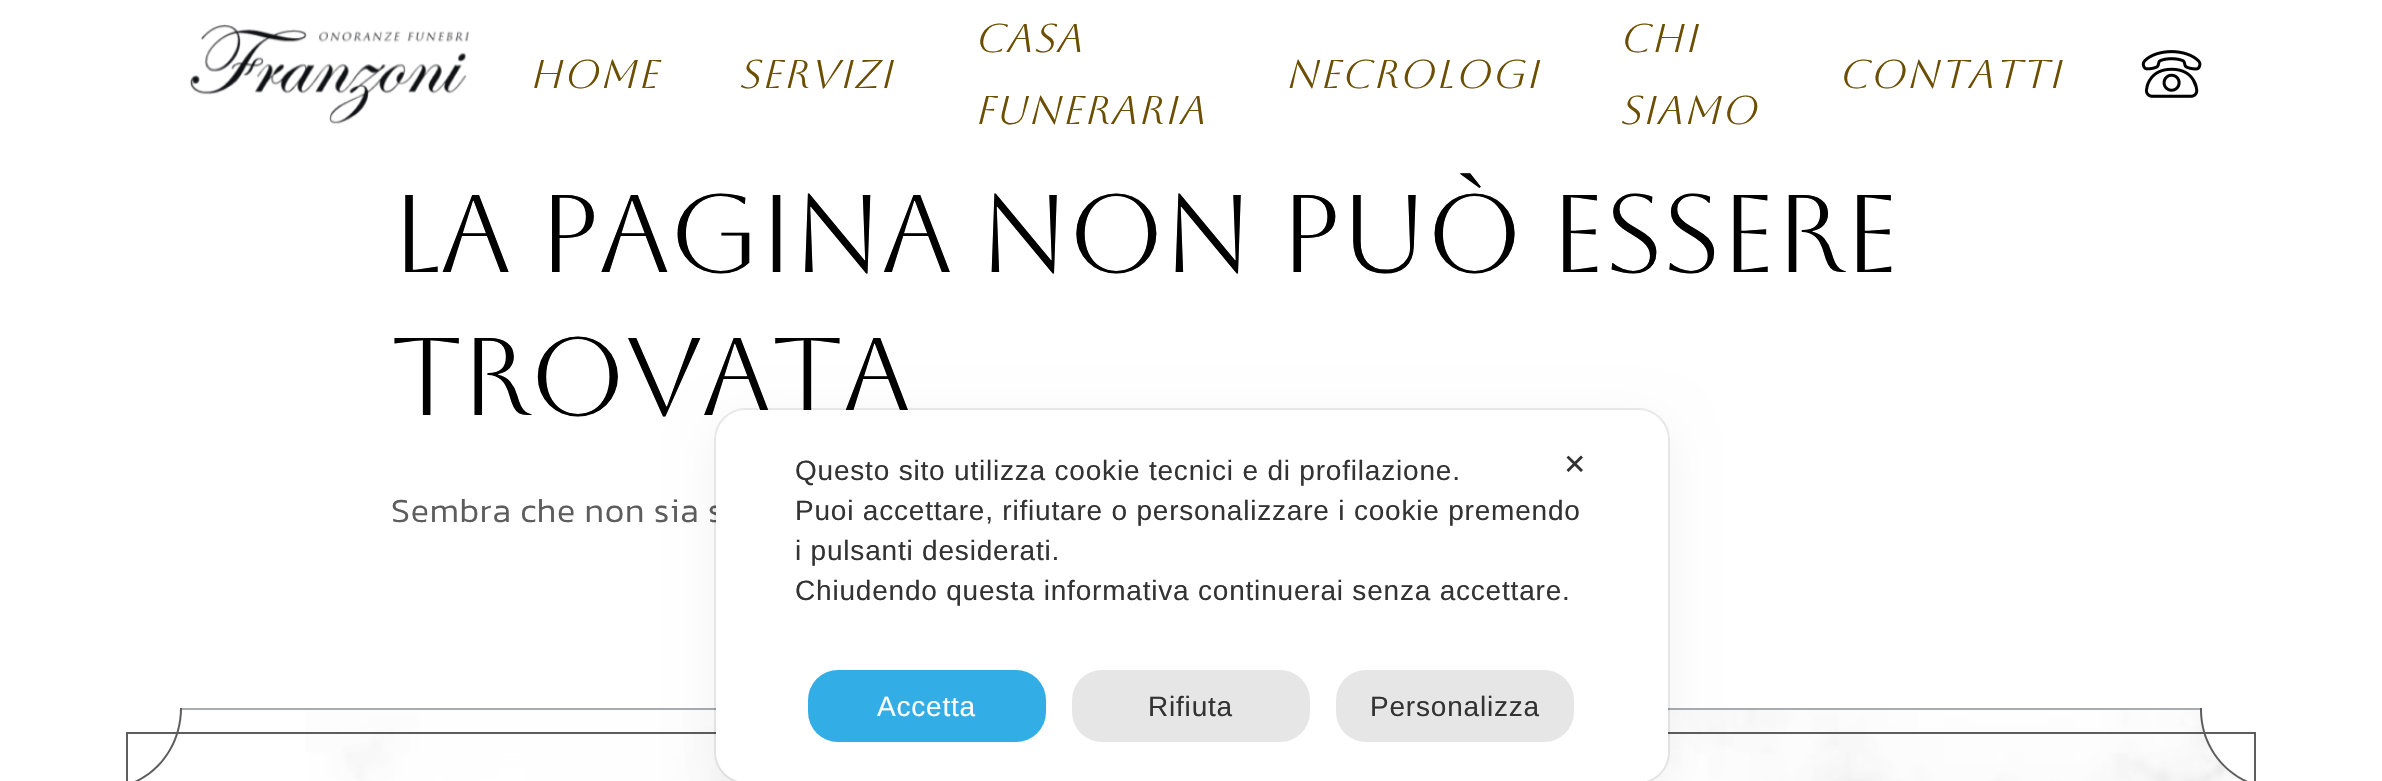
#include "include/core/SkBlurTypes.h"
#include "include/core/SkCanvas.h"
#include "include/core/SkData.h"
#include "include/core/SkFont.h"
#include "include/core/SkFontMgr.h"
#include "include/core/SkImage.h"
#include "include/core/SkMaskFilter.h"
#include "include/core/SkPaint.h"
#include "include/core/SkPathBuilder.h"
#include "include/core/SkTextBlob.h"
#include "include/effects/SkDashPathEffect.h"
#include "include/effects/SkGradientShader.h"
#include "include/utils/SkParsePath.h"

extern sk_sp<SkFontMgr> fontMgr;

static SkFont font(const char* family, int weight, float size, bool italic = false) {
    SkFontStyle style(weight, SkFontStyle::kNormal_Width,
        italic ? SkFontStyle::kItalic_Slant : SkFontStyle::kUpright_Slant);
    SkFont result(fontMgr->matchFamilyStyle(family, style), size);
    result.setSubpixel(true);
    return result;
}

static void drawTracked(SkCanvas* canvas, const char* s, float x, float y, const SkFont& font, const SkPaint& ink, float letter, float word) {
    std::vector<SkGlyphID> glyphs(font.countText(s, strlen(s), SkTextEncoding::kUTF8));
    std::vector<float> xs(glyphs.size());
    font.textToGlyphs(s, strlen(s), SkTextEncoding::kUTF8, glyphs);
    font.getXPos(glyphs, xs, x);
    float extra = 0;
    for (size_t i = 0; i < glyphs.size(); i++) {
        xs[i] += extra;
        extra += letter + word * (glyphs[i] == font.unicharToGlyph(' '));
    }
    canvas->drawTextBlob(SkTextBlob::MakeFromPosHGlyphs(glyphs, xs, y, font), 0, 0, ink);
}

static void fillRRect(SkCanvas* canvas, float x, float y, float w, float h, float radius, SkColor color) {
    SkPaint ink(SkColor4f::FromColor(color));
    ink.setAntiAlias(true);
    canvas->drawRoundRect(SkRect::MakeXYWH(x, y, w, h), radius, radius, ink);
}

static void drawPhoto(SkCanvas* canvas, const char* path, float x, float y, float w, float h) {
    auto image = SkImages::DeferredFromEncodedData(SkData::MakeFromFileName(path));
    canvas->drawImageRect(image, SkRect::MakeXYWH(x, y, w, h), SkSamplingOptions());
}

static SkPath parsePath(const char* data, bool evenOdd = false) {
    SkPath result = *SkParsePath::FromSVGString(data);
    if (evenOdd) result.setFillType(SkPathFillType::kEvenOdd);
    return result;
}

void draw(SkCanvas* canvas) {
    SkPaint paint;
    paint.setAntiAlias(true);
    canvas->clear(0xFFFFFFFF);
    drawPhoto(canvas, "assets/img1.png", 190, 24, 279, 100);
    SkFont font1 = font("Aboreto", 400, 40, true);
    paint.setColor(0xFF6B4E00);
    drawTracked(canvas, "Home", 529, 88, font1, paint, 1, 0);
    drawTracked(canvas, "Servizi", 738, 88, font1, paint, 1, 0);
    drawTracked(canvas, "Casa", 974, 52, font1, paint, 1, 0);
    drawTracked(canvas, "Funeraria", 974, 124, font1, paint, 1, 0);
    drawTracked(canvas, "Necrologi", 1285, 88, font1, paint, 1, 0);
    drawTracked(canvas, "Chi", 1619, 52, font1, paint, 1, 0);
    drawTracked(canvas, "Siamo", 1619, 124, font1, paint, 1, 0);
    drawTracked(canvas, "Contatti", 1838, 88, font1, paint, 1, 0);
    drawPhoto(canvas, "assets/img2.png", 2141, 50, 61, 48);
    SkFont font2 = font("Aboreto", 400, 110);
    paint.setColor(0xFF000000);
    drawTracked(canvas, "La pagina non può essere", 391, 272, font2, paint, -2, 0);
    drawTracked(canvas, "trovata", 391, 415, font2, paint, -2, 0);
    SkFont font3 = font("Kanit", 300, 34);
    paint.setColor(0xFF5D5D5D);
    drawTracked(canvas, "Sembra che non sia s", 391, 522, font3, paint, 0.8f, 0);
    drawPhoto(canvas, "assets/img3.png", 305, 710, 1943, 71);
    paint.setStroke(true);
    paint.setStrokeWidth(2);
    paint.setColor(0xFFA7ACB0);
    canvas->drawRect(SkRect::MakeXYWH(103, 709, 2176, 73), paint);
    paint.setStroke(false);
    paint.setColor(0xFFFFFFFF);
    canvas->drawPath(parsePath("M102 708H180V710C180 753 145 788 102 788Z"), paint);
    paint.setColor(0xFF5D5D5D);
    canvas->drawPath(parsePath("M102 708H182C182 753 148 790 102 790ZM102 708H180C180 752 147 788 102 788Z", true), paint);
    paint.setColor(0xFFFFFFFF);
    canvas->drawPath(parsePath("M2202 708H2280V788C2237 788 2202 753 2202 710Z"), paint);
    paint.setColor(0xFF5D5D5D);
    canvas->drawPath(parsePath("M2200 708H2280V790C2236 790 2200 754 2200 710ZM2202 708H2280V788C2237 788 2202 753 2202 710Z", true), paint);
    paint.setStroke(true);
    canvas->drawRect(SkRect::MakeXYWH(127, 733, 2128, 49), paint);
    paint.setColor(0x14000000);
    canvas->drawRoundRect(SkRect::MakeXYWH(715, 409, 954, 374), 31, 31, paint);
    paint.setStroke(false);
    paint.setColor(0x0D000000);
    paint.setMaskFilter(SkMaskFilter::MakeBlur(kNormal_SkBlurStyle, 24));
    canvas->drawRoundRect(SkRect::MakeXYWH(716, 422, 952, 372), 30, 30, paint);
    paint.setMaskFilter(nullptr);
    fillRRect(canvas, 716, 410, 952, 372, 30, 0xFFFFFFFF);
    SkFont font4 = font("DejaVu Sans", 400, 28);
    paint.setColor(0xFF333333);
    drawTracked(canvas, "✕", 1563, 474, font4, paint, 0.8f, 0);
    SkFont font5 = font("Liberation Sans", 400, 28);
    drawTracked(canvas, "Questo sito utilizza cookie tecnici e di profilazione.", 795, 480, font5, paint, 0.8f, 0);
    drawTracked(canvas, "Puoi accettare, rifiutare o personalizzare i cookie premendo", 795, 520, font5, paint, 0.8f, 0);
    drawTracked(canvas, "i pulsanti desiderati.", 795, 560, font5, paint, 0.8f, 0);
    drawTracked(canvas, "Chiudendo questa informativa continuerai senza accettare.", 795, 600, font5, paint, 0.8f, 0);
    fillRRect(canvas, 808, 670, 238, 72, 30, 0xFF32ADE6);
    paint.setColor(0xFFFFFFFF);
    drawTracked(canvas, "Accetta", 877, 716, font5, paint, 0.8f, 0);
    fillRRect(canvas, 1072, 670, 238, 72, 30, 0xFFE6E6E6);
    paint.setColor(0xFF333333);
    drawTracked(canvas, "Rifiuta", 1148, 716, font5, paint, 0.8f, 0);
    fillRRect(canvas, 1336, 670, 238, 72, 30, 0xFFE6E6E6);
    drawTracked(canvas, "Personalizza", 1370, 716, font5, paint, 0.8f, 0);
}
